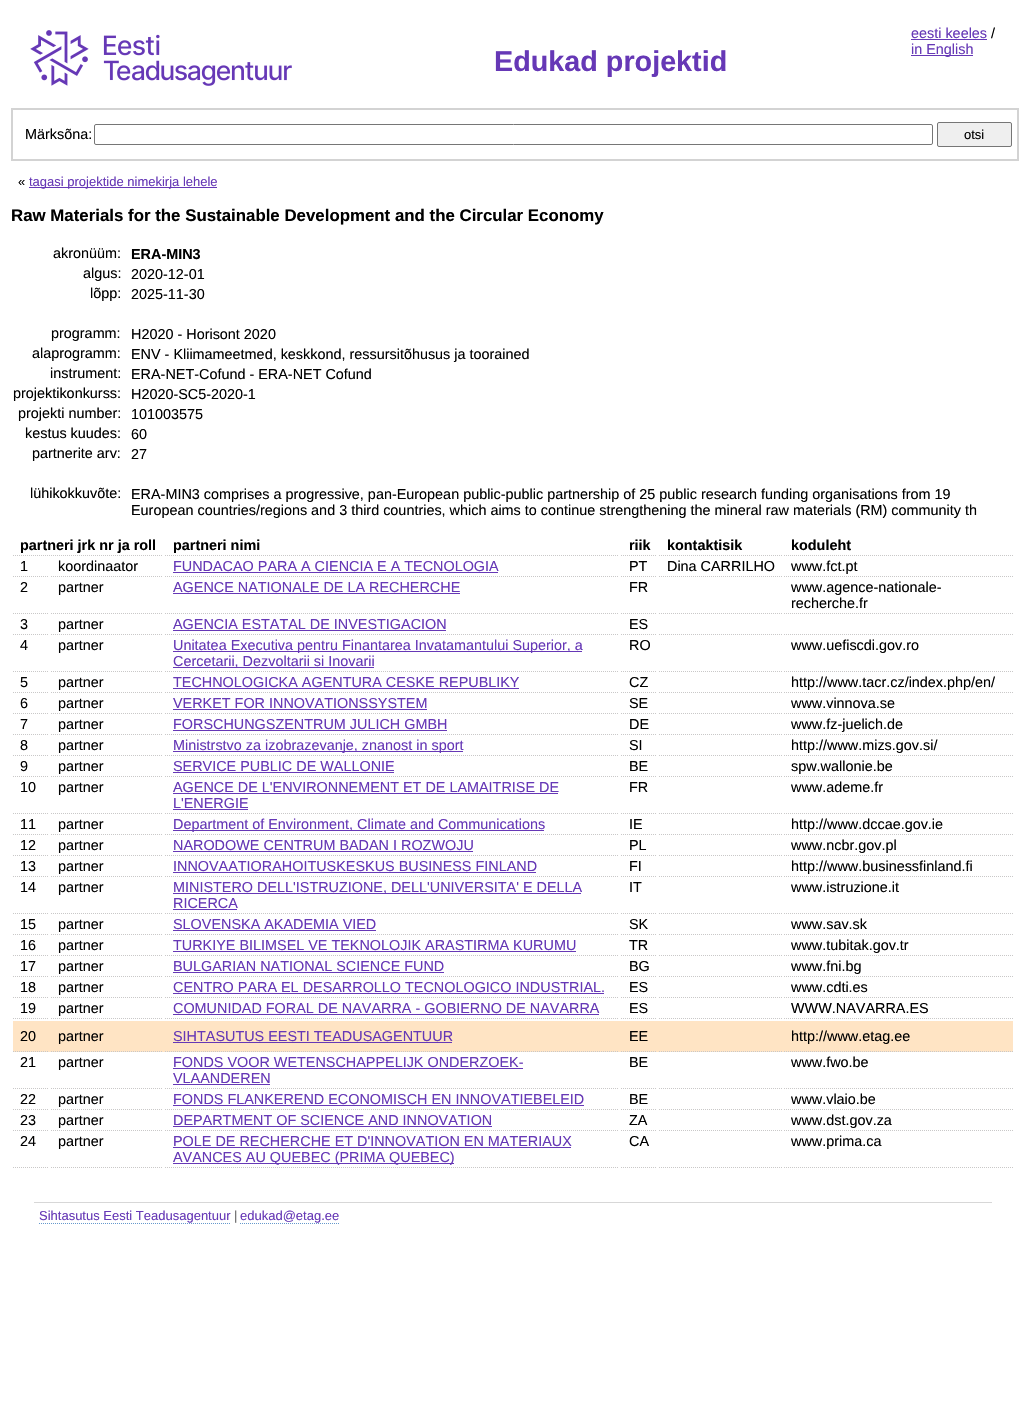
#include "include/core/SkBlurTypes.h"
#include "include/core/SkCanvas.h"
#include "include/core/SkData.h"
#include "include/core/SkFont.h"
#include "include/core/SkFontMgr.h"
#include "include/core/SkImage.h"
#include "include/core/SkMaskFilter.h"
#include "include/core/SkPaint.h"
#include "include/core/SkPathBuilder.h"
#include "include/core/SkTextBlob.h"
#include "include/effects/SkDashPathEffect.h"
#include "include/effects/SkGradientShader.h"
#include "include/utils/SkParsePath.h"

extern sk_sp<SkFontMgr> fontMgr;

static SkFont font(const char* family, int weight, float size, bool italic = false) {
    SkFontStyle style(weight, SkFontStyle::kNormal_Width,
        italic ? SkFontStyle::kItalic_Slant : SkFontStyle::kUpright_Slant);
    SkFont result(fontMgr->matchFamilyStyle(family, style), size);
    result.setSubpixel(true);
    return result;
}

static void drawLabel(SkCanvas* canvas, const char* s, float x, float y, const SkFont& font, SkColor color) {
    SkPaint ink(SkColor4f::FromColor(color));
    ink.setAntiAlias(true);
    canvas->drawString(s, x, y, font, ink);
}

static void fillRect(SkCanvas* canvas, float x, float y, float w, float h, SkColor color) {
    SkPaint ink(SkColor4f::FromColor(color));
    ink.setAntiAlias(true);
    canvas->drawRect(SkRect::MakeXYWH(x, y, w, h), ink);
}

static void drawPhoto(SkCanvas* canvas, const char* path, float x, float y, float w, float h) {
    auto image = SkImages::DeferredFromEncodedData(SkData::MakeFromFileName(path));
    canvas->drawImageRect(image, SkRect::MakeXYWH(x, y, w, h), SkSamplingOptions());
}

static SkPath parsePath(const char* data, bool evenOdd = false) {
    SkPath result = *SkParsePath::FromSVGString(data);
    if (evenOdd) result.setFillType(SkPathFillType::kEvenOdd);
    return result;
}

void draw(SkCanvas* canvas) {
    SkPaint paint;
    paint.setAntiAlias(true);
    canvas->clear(0xFFFFFFFF);
    drawPhoto(canvas, "assets/img1.png", 30, 30, 262, 56);
    SkFont font1 = font("Liberation Sans", 700, 28.75f);
    drawLabel(canvas, "Edukad projektid", 494, 71, font1, 0xFF6638B6);
    SkFont font2 = font("Liberation Sans", 400, 14.4f);
    drawLabel(canvas, "eesti keeles", 911, 38, font2, 0xFF6638B6);
    fillRect(canvas, 911, 39, 76, 1, 0xFF6638B6);
    drawLabel(canvas, "/", 991, 38, font2, 0xFF000000);
    fillRect(canvas, 911, 55, 62, 1, 0xFF6638B6);
    drawLabel(canvas, "in English", 911, 54, font2, 0xFF6638B6);
    paint.setStroke(true);
    paint.setStrokeWidth(2);
    paint.setColor(0xFFD3D3D3);
    canvas->drawRect(SkRect::MakeXYWH(12, 109, 1006, 51), paint);
    drawLabel(canvas, "Märksõna:", 25, 139, font2, 0xFF000000);
    paint.setStrokeWidth(1);
    paint.setColor(0xFF767676);
    canvas->drawRoundRect(SkRect::MakeXYWH(94.5f, 124.5f, 838, 20), 1.5f, 1.5f, paint);
    paint.setStroke(false);
    paint.setColor(0xFFEFEFEF);
    canvas->drawRoundRect(SkRect::MakeXYWH(937.5f, 122.5f, 74, 24), 1.5f, 1.5f, paint);
    paint.setStroke(true);
    paint.setColor(0xFF767676);
    canvas->drawRoundRect(SkRect::MakeXYWH(937.5f, 122.5f, 74, 24), 1.5f, 1.5f, paint);
    SkFont font3 = font("Liberation Sans", 400, 13);
    drawLabel(canvas, "otsi", 964, 139, font3, 0xFF000000);
    drawLabel(canvas, "«", 18, 186, font3, 0xFF000000);
    fillRect(canvas, 29, 187, 188, 1, 0xFF6638B6);
    drawLabel(canvas, "tagasi projektide nimekirja lehele", 29, 186, font3, 0xFF6638B6);
    SkFont font4 = font("Liberation Sans", 700, 16.85f);
    drawLabel(canvas, "Raw Materials for the Sustainable Development and the Circular Economy", 11, 221, font4, 0xFF000000);
    drawLabel(canvas, "akronüüm:", 53, 258, font2, 0xFF000000);
    SkFont font5 = font("Liberation Sans", 700, 14.4f);
    drawLabel(canvas, "ERA-MIN3", 131, 259, font5, 0xFF000000);
    drawLabel(canvas, "algus:", 83, 278, font2, 0xFF000000);
    drawLabel(canvas, "2020-12-01", 131, 279, font2, 0xFF000000);
    drawLabel(canvas, "lõpp:", 90, 298, font2, 0xFF000000);
    drawLabel(canvas, "2025-11-30", 131, 299, font2, 0xFF000000);
    drawLabel(canvas, "programm:", 51, 338, font2, 0xFF000000);
    drawLabel(canvas, "H2020 - Horisont 2020", 131, 339, font2, 0xFF000000);
    drawLabel(canvas, "alaprogramm:", 32, 358, font2, 0xFF000000);
    drawLabel(canvas, "ENV - Kliimameetmed, keskkond, ressursitõhusus ja toorained", 131, 359, font2, 0xFF000000);
    drawLabel(canvas, "instrument:", 50, 378, font2, 0xFF000000);
    drawLabel(canvas, "ERA-NET-Cofund - ERA-NET Cofund", 131, 379, font2, 0xFF000000);
    drawLabel(canvas, "projektikonkurss:", 13, 398, font2, 0xFF000000);
    drawLabel(canvas, "H2020-SC5-2020-1", 131, 399, font2, 0xFF000000);
    drawLabel(canvas, "projekti number:", 18, 418, font2, 0xFF000000);
    drawLabel(canvas, "101003575", 131, 419, font2, 0xFF000000);
    drawLabel(canvas, "kestus kuudes:", 25, 438, font2, 0xFF000000);
    drawLabel(canvas, "60", 131, 439, font2, 0xFF000000);
    drawLabel(canvas, "partnerite arv:", 32, 458, font2, 0xFF000000);
    drawLabel(canvas, "27", 131, 459, font2, 0xFF000000);
    drawLabel(canvas, "lühikokkuvõte:", 30, 498, font2, 0xFF000000);
    drawLabel(canvas, "ERA-MIN3 comprises a progressive, pan-European public-public partnership of 25 public research funding organisations from 19", 131, 499, font2, 0xFF000000);
    drawLabel(canvas, "European countries/regions and 3 third countries, which aims to continue strengthening the mineral raw materials (RM) community th", 131, 515, font2, 0xFF000000);
    paint.setColor(0xFFC9C8C8);
    paint.setPathEffect(SkDashPathEffect::Make({{1, 1}}, 0));
    canvas->drawPath(parsePath("M13 555.5H163"), paint);
    paint.setPathEffect(nullptr);
    drawLabel(canvas, "partneri jrk nr ja roll", 20, 550, font5, 0xFF000000);
    paint.setPathEffect(SkDashPathEffect::Make({{1, 1}}, 0));
    canvas->drawPath(parsePath("M165 555.5H619"), paint);
    paint.setPathEffect(nullptr);
    drawLabel(canvas, "partneri nimi", 173, 550, font5, 0xFF000000);
    paint.setPathEffect(SkDashPathEffect::Make({{1, 1}}, 0));
    canvas->drawPath(parsePath("M621 555.5H657"), paint);
    paint.setPathEffect(nullptr);
    drawLabel(canvas, "riik", 629, 550, font5, 0xFF000000);
    paint.setPathEffect(SkDashPathEffect::Make({{1, 1}}, 0));
    canvas->drawPath(parsePath("M659 555.5H782"), paint);
    paint.setPathEffect(nullptr);
    drawLabel(canvas, "kontaktisik", 667, 550, font5, 0xFF000000);
    paint.setPathEffect(SkDashPathEffect::Make({{1, 1}}, 0));
    canvas->drawPath(parsePath("M784 555.5H1013"), paint);
    paint.setPathEffect(nullptr);
    drawLabel(canvas, "koduleht", 791, 550, font5, 0xFF000000);
    paint.setPathEffect(SkDashPathEffect::Make({{1, 1}}, 0));
    canvas->drawPath(parsePath("M13 576.5H49"), paint);
    paint.setPathEffect(nullptr);
    drawLabel(canvas, "1", 20, 571, font2, 0xFF000000);
    paint.setPathEffect(SkDashPathEffect::Make({{1, 1}}, 0));
    canvas->drawPath(parsePath("M51 576.5H163"), paint);
    paint.setPathEffect(nullptr);
    drawLabel(canvas, "koordinaator", 58, 571, font2, 0xFF000000);
    paint.setPathEffect(SkDashPathEffect::Make({{1, 1}}, 0));
    canvas->drawPath(parsePath("M165 576.5H619"), paint);
    paint.setPathEffect(nullptr);
    drawLabel(canvas, "FUNDACAO PARA A CIENCIA E A TECNOLOGIA", 173, 571, font2, 0xFF6638B6);
    fillRect(canvas, 173, 572, 325, 1, 0xFF6638B6);
    paint.setPathEffect(SkDashPathEffect::Make({{1, 1}}, 0));
    canvas->drawPath(parsePath("M621 576.5H657"), paint);
    paint.setPathEffect(nullptr);
    drawLabel(canvas, "PT", 629, 571, font2, 0xFF000000);
    paint.setPathEffect(SkDashPathEffect::Make({{1, 1}}, 0));
    canvas->drawPath(parsePath("M659 576.5H782"), paint);
    paint.setPathEffect(nullptr);
    drawLabel(canvas, "Dina CARRILHO", 667, 571, font2, 0xFF000000);
    paint.setPathEffect(SkDashPathEffect::Make({{1, 1}}, 0));
    canvas->drawPath(parsePath("M784 576.5H1013"), paint);
    paint.setPathEffect(nullptr);
    drawLabel(canvas, "www.fct.pt", 791, 571, font2, 0xFF000000);
    paint.setPathEffect(SkDashPathEffect::Make({{1, 1}}, 0));
    canvas->drawPath(parsePath("M13 613.5H49"), paint);
    paint.setPathEffect(nullptr);
    drawLabel(canvas, "2", 20, 592, font2, 0xFF000000);
    paint.setPathEffect(SkDashPathEffect::Make({{1, 1}}, 0));
    canvas->drawPath(parsePath("M51 613.5H163"), paint);
    paint.setPathEffect(nullptr);
    drawLabel(canvas, "partner", 58, 592, font2, 0xFF000000);
    paint.setPathEffect(SkDashPathEffect::Make({{1, 1}}, 0));
    canvas->drawPath(parsePath("M165 613.5H619"), paint);
    paint.setPathEffect(nullptr);
    drawLabel(canvas, "AGENCE NATIONALE DE LA RECHERCHE", 173, 592, font2, 0xFF6638B6);
    fillRect(canvas, 173, 593, 287, 1, 0xFF6638B6);
    paint.setPathEffect(SkDashPathEffect::Make({{1, 1}}, 0));
    canvas->drawPath(parsePath("M621 613.5H657"), paint);
    paint.setPathEffect(nullptr);
    drawLabel(canvas, "FR", 629, 592, font2, 0xFF000000);
    paint.setPathEffect(SkDashPathEffect::Make({{1, 1}}, 0));
    canvas->drawPath(parsePath("M784 613.5H1013"), paint);
    paint.setPathEffect(nullptr);
    drawLabel(canvas, "www.agence-nationale-", 791, 592, font2, 0xFF000000);
    drawLabel(canvas, "recherche.fr", 791, 608, font2, 0xFF000000);
    paint.setPathEffect(SkDashPathEffect::Make({{1, 1}}, 0));
    canvas->drawPath(parsePath("M659 613.5H782"), paint);
    paint.setPathEffect(nullptr);
    paint.setPathEffect(SkDashPathEffect::Make({{1, 1}}, 0));
    canvas->drawPath(parsePath("M13 634.5H49"), paint);
    paint.setPathEffect(nullptr);
    drawLabel(canvas, "3", 20, 629, font2, 0xFF000000);
    paint.setPathEffect(SkDashPathEffect::Make({{1, 1}}, 0));
    canvas->drawPath(parsePath("M51 634.5H163"), paint);
    paint.setPathEffect(nullptr);
    drawLabel(canvas, "partner", 58, 629, font2, 0xFF000000);
    paint.setPathEffect(SkDashPathEffect::Make({{1, 1}}, 0));
    canvas->drawPath(parsePath("M165 634.5H619"), paint);
    paint.setPathEffect(nullptr);
    drawLabel(canvas, "AGENCIA ESTATAL DE INVESTIGACION", 173, 629, font2, 0xFF6638B6);
    fillRect(canvas, 173, 630, 273, 1, 0xFF6638B6);
    paint.setPathEffect(SkDashPathEffect::Make({{1, 1}}, 0));
    canvas->drawPath(parsePath("M621 634.5H657"), paint);
    paint.setPathEffect(nullptr);
    drawLabel(canvas, "ES", 629, 629, font2, 0xFF000000);
    paint.setPathEffect(SkDashPathEffect::Make({{1, 1}}, 0));
    canvas->drawPath(parsePath("M659 634.5H782"), paint);
    paint.setPathEffect(nullptr);
    paint.setPathEffect(SkDashPathEffect::Make({{1, 1}}, 0));
    canvas->drawPath(parsePath("M784 634.5H1013"), paint);
    paint.setPathEffect(nullptr);
    paint.setPathEffect(SkDashPathEffect::Make({{1, 1}}, 0));
    canvas->drawPath(parsePath("M13 671.5H49"), paint);
    paint.setPathEffect(nullptr);
    drawLabel(canvas, "4", 20, 650, font2, 0xFF000000);
    paint.setPathEffect(SkDashPathEffect::Make({{1, 1}}, 0));
    canvas->drawPath(parsePath("M51 671.5H163"), paint);
    paint.setPathEffect(nullptr);
    drawLabel(canvas, "partner", 58, 650, font2, 0xFF000000);
    paint.setPathEffect(SkDashPathEffect::Make({{1, 1}}, 0));
    canvas->drawPath(parsePath("M165 671.5H619"), paint);
    paint.setPathEffect(nullptr);
    fillRect(canvas, 173, 651, 409, 1, 0xFF6638B6);
    drawLabel(canvas, "Unitatea Executiva pentru Finantarea Invatamantului Superior, a", 173, 650, font2, 0xFF6638B6);
    fillRect(canvas, 173, 667, 201, 1, 0xFF6638B6);
    drawLabel(canvas, "Cercetarii, Dezvoltarii si Inovarii", 173, 666, font2, 0xFF6638B6);
    paint.setPathEffect(SkDashPathEffect::Make({{1, 1}}, 0));
    canvas->drawPath(parsePath("M621 671.5H657"), paint);
    paint.setPathEffect(nullptr);
    drawLabel(canvas, "RO", 629, 650, font2, 0xFF000000);
    paint.setPathEffect(SkDashPathEffect::Make({{1, 1}}, 0));
    canvas->drawPath(parsePath("M784 671.5H1013"), paint);
    paint.setPathEffect(nullptr);
    drawLabel(canvas, "www.uefiscdi.gov.ro", 791, 650, font2, 0xFF000000);
    paint.setPathEffect(SkDashPathEffect::Make({{1, 1}}, 0));
    canvas->drawPath(parsePath("M659 671.5H782"), paint);
    paint.setPathEffect(nullptr);
    paint.setPathEffect(SkDashPathEffect::Make({{1, 1}}, 0));
    canvas->drawPath(parsePath("M13 692.5H49"), paint);
    paint.setPathEffect(nullptr);
    drawLabel(canvas, "5", 20, 687, font2, 0xFF000000);
    paint.setPathEffect(SkDashPathEffect::Make({{1, 1}}, 0));
    canvas->drawPath(parsePath("M51 692.5H163"), paint);
    paint.setPathEffect(nullptr);
    drawLabel(canvas, "partner", 58, 687, font2, 0xFF000000);
    paint.setPathEffect(SkDashPathEffect::Make({{1, 1}}, 0));
    canvas->drawPath(parsePath("M165 692.5H619"), paint);
    paint.setPathEffect(nullptr);
    drawLabel(canvas, "TECHNOLOGICKA AGENTURA CESKE REPUBLIKY", 173, 687, font2, 0xFF6638B6);
    fillRect(canvas, 173, 688, 346, 1, 0xFF6638B6);
    paint.setPathEffect(SkDashPathEffect::Make({{1, 1}}, 0));
    canvas->drawPath(parsePath("M621 692.5H657"), paint);
    paint.setPathEffect(nullptr);
    drawLabel(canvas, "CZ", 629, 687, font2, 0xFF000000);
    paint.setPathEffect(SkDashPathEffect::Make({{1, 1}}, 0));
    canvas->drawPath(parsePath("M784 692.5H1013"), paint);
    paint.setPathEffect(nullptr);
    drawLabel(canvas, "http://www.tacr.cz/index.php/en/", 791, 687, font2, 0xFF000000);
    paint.setPathEffect(SkDashPathEffect::Make({{1, 1}}, 0));
    canvas->drawPath(parsePath("M659 692.5H782"), paint);
    paint.setPathEffect(nullptr);
    paint.setPathEffect(SkDashPathEffect::Make({{1, 1}}, 0));
    canvas->drawPath(parsePath("M13 713.5H49"), paint);
    paint.setPathEffect(nullptr);
    drawLabel(canvas, "6", 20, 708, font2, 0xFF000000);
    paint.setPathEffect(SkDashPathEffect::Make({{1, 1}}, 0));
    canvas->drawPath(parsePath("M51 713.5H163"), paint);
    paint.setPathEffect(nullptr);
    drawLabel(canvas, "partner", 58, 708, font2, 0xFF000000);
    paint.setPathEffect(SkDashPathEffect::Make({{1, 1}}, 0));
    canvas->drawPath(parsePath("M165 713.5H619"), paint);
    paint.setPathEffect(nullptr);
    drawLabel(canvas, "VERKET FOR INNOVATIONSSYSTEM", 173, 708, font2, 0xFF6638B6);
    fillRect(canvas, 173, 709, 254, 1, 0xFF6638B6);
    paint.setPathEffect(SkDashPathEffect::Make({{1, 1}}, 0));
    canvas->drawPath(parsePath("M621 713.5H657"), paint);
    paint.setPathEffect(nullptr);
    drawLabel(canvas, "SE", 629, 708, font2, 0xFF000000);
    paint.setPathEffect(SkDashPathEffect::Make({{1, 1}}, 0));
    canvas->drawPath(parsePath("M784 713.5H1013"), paint);
    paint.setPathEffect(nullptr);
    drawLabel(canvas, "www.vinnova.se", 791, 708, font2, 0xFF000000);
    paint.setPathEffect(SkDashPathEffect::Make({{1, 1}}, 0));
    canvas->drawPath(parsePath("M659 713.5H782"), paint);
    paint.setPathEffect(nullptr);
    paint.setPathEffect(SkDashPathEffect::Make({{1, 1}}, 0));
    canvas->drawPath(parsePath("M13 734.5H49"), paint);
    paint.setPathEffect(nullptr);
    drawLabel(canvas, "7", 20, 729, font2, 0xFF000000);
    paint.setPathEffect(SkDashPathEffect::Make({{1, 1}}, 0));
    canvas->drawPath(parsePath("M51 734.5H163"), paint);
    paint.setPathEffect(nullptr);
    drawLabel(canvas, "partner", 58, 729, font2, 0xFF000000);
    paint.setPathEffect(SkDashPathEffect::Make({{1, 1}}, 0));
    canvas->drawPath(parsePath("M165 734.5H619"), paint);
    paint.setPathEffect(nullptr);
    drawLabel(canvas, "FORSCHUNGSZENTRUM JULICH GMBH", 173, 729, font2, 0xFF6638B6);
    fillRect(canvas, 173, 730, 274, 1, 0xFF6638B6);
    paint.setPathEffect(SkDashPathEffect::Make({{1, 1}}, 0));
    canvas->drawPath(parsePath("M621 734.5H657"), paint);
    paint.setPathEffect(nullptr);
    drawLabel(canvas, "DE", 629, 729, font2, 0xFF000000);
    paint.setPathEffect(SkDashPathEffect::Make({{1, 1}}, 0));
    canvas->drawPath(parsePath("M784 734.5H1013"), paint);
    paint.setPathEffect(nullptr);
    drawLabel(canvas, "www.fz-juelich.de", 791, 729, font2, 0xFF000000);
    paint.setPathEffect(SkDashPathEffect::Make({{1, 1}}, 0));
    canvas->drawPath(parsePath("M659 734.5H782"), paint);
    paint.setPathEffect(nullptr);
    paint.setPathEffect(SkDashPathEffect::Make({{1, 1}}, 0));
    canvas->drawPath(parsePath("M13 755.5H49"), paint);
    paint.setPathEffect(nullptr);
    drawLabel(canvas, "8", 20, 750, font2, 0xFF000000);
    paint.setPathEffect(SkDashPathEffect::Make({{1, 1}}, 0));
    canvas->drawPath(parsePath("M51 755.5H163"), paint);
    paint.setPathEffect(nullptr);
    drawLabel(canvas, "partner", 58, 750, font2, 0xFF000000);
    paint.setPathEffect(SkDashPathEffect::Make({{1, 1}}, 0));
    canvas->drawPath(parsePath("M165 755.5H619"), paint);
    paint.setPathEffect(nullptr);
    fillRect(canvas, 173, 751, 290, 1, 0xFF6638B6);
    drawLabel(canvas, "Ministrstvo za izobrazevanje, znanost in sport", 173, 750, font2, 0xFF6638B6);
    paint.setPathEffect(SkDashPathEffect::Make({{1, 1}}, 0));
    canvas->drawPath(parsePath("M621 755.5H657"), paint);
    paint.setPathEffect(nullptr);
    drawLabel(canvas, "SI", 629, 750, font2, 0xFF000000);
    paint.setPathEffect(SkDashPathEffect::Make({{1, 1}}, 0));
    canvas->drawPath(parsePath("M784 755.5H1013"), paint);
    paint.setPathEffect(nullptr);
    drawLabel(canvas, "http://www.mizs.gov.si/", 791, 750, font2, 0xFF000000);
    paint.setPathEffect(SkDashPathEffect::Make({{1, 1}}, 0));
    canvas->drawPath(parsePath("M659 755.5H782"), paint);
    paint.setPathEffect(nullptr);
    paint.setPathEffect(SkDashPathEffect::Make({{1, 1}}, 0));
    canvas->drawPath(parsePath("M13 776.5H49"), paint);
    paint.setPathEffect(nullptr);
    drawLabel(canvas, "9", 20, 771, font2, 0xFF000000);
    paint.setPathEffect(SkDashPathEffect::Make({{1, 1}}, 0));
    canvas->drawPath(parsePath("M51 776.5H163"), paint);
    paint.setPathEffect(nullptr);
    drawLabel(canvas, "partner", 58, 771, font2, 0xFF000000);
    paint.setPathEffect(SkDashPathEffect::Make({{1, 1}}, 0));
    canvas->drawPath(parsePath("M165 776.5H619"), paint);
    paint.setPathEffect(nullptr);
    drawLabel(canvas, "SERVICE PUBLIC DE WALLONIE", 173, 771, font2, 0xFF6638B6);
    fillRect(canvas, 173, 772, 221, 1, 0xFF6638B6);
    paint.setPathEffect(SkDashPathEffect::Make({{1, 1}}, 0));
    canvas->drawPath(parsePath("M621 776.5H657"), paint);
    paint.setPathEffect(nullptr);
    drawLabel(canvas, "BE", 629, 771, font2, 0xFF000000);
    paint.setPathEffect(SkDashPathEffect::Make({{1, 1}}, 0));
    canvas->drawPath(parsePath("M784 776.5H1013"), paint);
    paint.setPathEffect(nullptr);
    drawLabel(canvas, "spw.wallonie.be", 791, 771, font2, 0xFF000000);
    paint.setPathEffect(SkDashPathEffect::Make({{1, 1}}, 0));
    canvas->drawPath(parsePath("M659 776.5H782"), paint);
    paint.setPathEffect(nullptr);
    paint.setPathEffect(SkDashPathEffect::Make({{1, 1}}, 0));
    canvas->drawPath(parsePath("M13 813.5H49"), paint);
    paint.setPathEffect(nullptr);
    drawLabel(canvas, "10", 20, 792, font2, 0xFF000000);
    paint.setPathEffect(SkDashPathEffect::Make({{1, 1}}, 0));
    canvas->drawPath(parsePath("M51 813.5H163"), paint);
    paint.setPathEffect(nullptr);
    drawLabel(canvas, "partner", 58, 792, font2, 0xFF000000);
    paint.setPathEffect(SkDashPathEffect::Make({{1, 1}}, 0));
    canvas->drawPath(parsePath("M165 813.5H619"), paint);
    paint.setPathEffect(nullptr);
    drawLabel(canvas, "AGENCE DE L'ENVIRONNEMENT ET DE LAMAITRISE DE", 173, 792, font2, 0xFF6638B6);
    fillRect(canvas, 173, 793, 385, 1, 0xFF6638B6);
    drawLabel(canvas, "L'ENERGIE", 173, 808, font2, 0xFF6638B6);
    fillRect(canvas, 173, 809, 75, 1, 0xFF6638B6);
    paint.setPathEffect(SkDashPathEffect::Make({{1, 1}}, 0));
    canvas->drawPath(parsePath("M621 813.5H657"), paint);
    paint.setPathEffect(nullptr);
    drawLabel(canvas, "FR", 629, 792, font2, 0xFF000000);
    paint.setPathEffect(SkDashPathEffect::Make({{1, 1}}, 0));
    canvas->drawPath(parsePath("M784 813.5H1013"), paint);
    paint.setPathEffect(nullptr);
    drawLabel(canvas, "www.ademe.fr", 791, 792, font2, 0xFF000000);
    paint.setPathEffect(SkDashPathEffect::Make({{1, 1}}, 0));
    canvas->drawPath(parsePath("M659 813.5H782"), paint);
    paint.setPathEffect(nullptr);
    paint.setPathEffect(SkDashPathEffect::Make({{1, 1}}, 0));
    canvas->drawPath(parsePath("M13 834.5H49"), paint);
    paint.setPathEffect(nullptr);
    drawLabel(canvas, "11", 20, 829, font2, 0xFF000000);
    paint.setPathEffect(SkDashPathEffect::Make({{1, 1}}, 0));
    canvas->drawPath(parsePath("M51 834.5H163"), paint);
    paint.setPathEffect(nullptr);
    drawLabel(canvas, "partner", 58, 829, font2, 0xFF000000);
    paint.setPathEffect(SkDashPathEffect::Make({{1, 1}}, 0));
    canvas->drawPath(parsePath("M165 834.5H619"), paint);
    paint.setPathEffect(nullptr);
    fillRect(canvas, 173, 830, 371, 1, 0xFF6638B6);
    drawLabel(canvas, "Department of Environment, Climate and Communications", 173, 829, font2, 0xFF6638B6);
    paint.setPathEffect(SkDashPathEffect::Make({{1, 1}}, 0));
    canvas->drawPath(parsePath("M621 834.5H657"), paint);
    paint.setPathEffect(nullptr);
    drawLabel(canvas, "IE", 629, 829, font2, 0xFF000000);
    paint.setPathEffect(SkDashPathEffect::Make({{1, 1}}, 0));
    canvas->drawPath(parsePath("M784 834.5H1013"), paint);
    paint.setPathEffect(nullptr);
    drawLabel(canvas, "http://www.dccae.gov.ie", 791, 829, font2, 0xFF000000);
    paint.setPathEffect(SkDashPathEffect::Make({{1, 1}}, 0));
    canvas->drawPath(parsePath("M659 834.5H782"), paint);
    paint.setPathEffect(nullptr);
    paint.setPathEffect(SkDashPathEffect::Make({{1, 1}}, 0));
    canvas->drawPath(parsePath("M13 855.5H49"), paint);
    paint.setPathEffect(nullptr);
    drawLabel(canvas, "12", 20, 850, font2, 0xFF000000);
    paint.setPathEffect(SkDashPathEffect::Make({{1, 1}}, 0));
    canvas->drawPath(parsePath("M51 855.5H163"), paint);
    paint.setPathEffect(nullptr);
    drawLabel(canvas, "partner", 58, 850, font2, 0xFF000000);
    paint.setPathEffect(SkDashPathEffect::Make({{1, 1}}, 0));
    canvas->drawPath(parsePath("M165 855.5H619"), paint);
    paint.setPathEffect(nullptr);
    drawLabel(canvas, "NARODOWE CENTRUM BADAN I ROZWOJU", 173, 850, font2, 0xFF6638B6);
    fillRect(canvas, 173, 851, 300, 1, 0xFF6638B6);
    paint.setPathEffect(SkDashPathEffect::Make({{1, 1}}, 0));
    canvas->drawPath(parsePath("M621 855.5H657"), paint);
    paint.setPathEffect(nullptr);
    drawLabel(canvas, "PL", 629, 850, font2, 0xFF000000);
    paint.setPathEffect(SkDashPathEffect::Make({{1, 1}}, 0));
    canvas->drawPath(parsePath("M784 855.5H1013"), paint);
    paint.setPathEffect(nullptr);
    drawLabel(canvas, "www.ncbr.gov.pl", 791, 850, font2, 0xFF000000);
    paint.setPathEffect(SkDashPathEffect::Make({{1, 1}}, 0));
    canvas->drawPath(parsePath("M659 855.5H782"), paint);
    paint.setPathEffect(nullptr);
    paint.setPathEffect(SkDashPathEffect::Make({{1, 1}}, 0));
    canvas->drawPath(parsePath("M13 876.5H49"), paint);
    paint.setPathEffect(nullptr);
    drawLabel(canvas, "13", 20, 871, font2, 0xFF000000);
    paint.setPathEffect(SkDashPathEffect::Make({{1, 1}}, 0));
    canvas->drawPath(parsePath("M51 876.5H163"), paint);
    paint.setPathEffect(nullptr);
    drawLabel(canvas, "partner", 58, 871, font2, 0xFF000000);
    paint.setPathEffect(SkDashPathEffect::Make({{1, 1}}, 0));
    canvas->drawPath(parsePath("M165 876.5H619"), paint);
    paint.setPathEffect(nullptr);
    drawLabel(canvas, "INNOVAATIORAHOITUSKESKUS BUSINESS FINLAND", 173, 871, font2, 0xFF6638B6);
    fillRect(canvas, 173, 872, 363, 1, 0xFF6638B6);
    paint.setPathEffect(SkDashPathEffect::Make({{1, 1}}, 0));
    canvas->drawPath(parsePath("M621 876.5H657"), paint);
    paint.setPathEffect(nullptr);
    drawLabel(canvas, "FI", 629, 871, font2, 0xFF000000);
    paint.setPathEffect(SkDashPathEffect::Make({{1, 1}}, 0));
    canvas->drawPath(parsePath("M784 876.5H1013"), paint);
    paint.setPathEffect(nullptr);
    drawLabel(canvas, "http://www.businessfinland.fi", 791, 871, font2, 0xFF000000);
    paint.setPathEffect(SkDashPathEffect::Make({{1, 1}}, 0));
    canvas->drawPath(parsePath("M659 876.5H782"), paint);
    paint.setPathEffect(nullptr);
    paint.setPathEffect(SkDashPathEffect::Make({{1, 1}}, 0));
    canvas->drawPath(parsePath("M13 913.5H49"), paint);
    paint.setPathEffect(nullptr);
    drawLabel(canvas, "14", 20, 892, font2, 0xFF000000);
    paint.setPathEffect(SkDashPathEffect::Make({{1, 1}}, 0));
    canvas->drawPath(parsePath("M51 913.5H163"), paint);
    paint.setPathEffect(nullptr);
    drawLabel(canvas, "partner", 58, 892, font2, 0xFF000000);
    paint.setPathEffect(SkDashPathEffect::Make({{1, 1}}, 0));
    canvas->drawPath(parsePath("M165 913.5H619"), paint);
    paint.setPathEffect(nullptr);
    fillRect(canvas, 173, 893, 408, 1, 0xFF6638B6);
    drawLabel(canvas, "MINISTERO DELL'ISTRUZIONE, DELL'UNIVERSITA' E DELLA", 173, 892, font2, 0xFF6638B6);
    drawLabel(canvas, "RICERCA", 173, 908, font2, 0xFF6638B6);
    fillRect(canvas, 173, 909, 64, 1, 0xFF6638B6);
    paint.setPathEffect(SkDashPathEffect::Make({{1, 1}}, 0));
    canvas->drawPath(parsePath("M621 913.5H657"), paint);
    paint.setPathEffect(nullptr);
    drawLabel(canvas, "IT", 629, 892, font2, 0xFF000000);
    paint.setPathEffect(SkDashPathEffect::Make({{1, 1}}, 0));
    canvas->drawPath(parsePath("M784 913.5H1013"), paint);
    paint.setPathEffect(nullptr);
    drawLabel(canvas, "www.istruzione.it", 791, 892, font2, 0xFF000000);
    paint.setPathEffect(SkDashPathEffect::Make({{1, 1}}, 0));
    canvas->drawPath(parsePath("M659 913.5H782"), paint);
    paint.setPathEffect(nullptr);
    paint.setPathEffect(SkDashPathEffect::Make({{1, 1}}, 0));
    canvas->drawPath(parsePath("M13 934.5H49"), paint);
    paint.setPathEffect(nullptr);
    drawLabel(canvas, "15", 20, 929, font2, 0xFF000000);
    paint.setPathEffect(SkDashPathEffect::Make({{1, 1}}, 0));
    canvas->drawPath(parsePath("M51 934.5H163"), paint);
    paint.setPathEffect(nullptr);
    drawLabel(canvas, "partner", 58, 929, font2, 0xFF000000);
    paint.setPathEffect(SkDashPathEffect::Make({{1, 1}}, 0));
    canvas->drawPath(parsePath("M165 934.5H619"), paint);
    paint.setPathEffect(nullptr);
    drawLabel(canvas, "SLOVENSKA AKADEMIA VIED", 173, 929, font2, 0xFF6638B6);
    fillRect(canvas, 173, 930, 203, 1, 0xFF6638B6);
    paint.setPathEffect(SkDashPathEffect::Make({{1, 1}}, 0));
    canvas->drawPath(parsePath("M621 934.5H657"), paint);
    paint.setPathEffect(nullptr);
    drawLabel(canvas, "SK", 629, 929, font2, 0xFF000000);
    paint.setPathEffect(SkDashPathEffect::Make({{1, 1}}, 0));
    canvas->drawPath(parsePath("M784 934.5H1013"), paint);
    paint.setPathEffect(nullptr);
    drawLabel(canvas, "www.sav.sk", 791, 929, font2, 0xFF000000);
    paint.setPathEffect(SkDashPathEffect::Make({{1, 1}}, 0));
    canvas->drawPath(parsePath("M659 934.5H782"), paint);
    paint.setPathEffect(nullptr);
    paint.setPathEffect(SkDashPathEffect::Make({{1, 1}}, 0));
    canvas->drawPath(parsePath("M13 955.5H49"), paint);
    paint.setPathEffect(nullptr);
    drawLabel(canvas, "16", 20, 950, font2, 0xFF000000);
    paint.setPathEffect(SkDashPathEffect::Make({{1, 1}}, 0));
    canvas->drawPath(parsePath("M51 955.5H163"), paint);
    paint.setPathEffect(nullptr);
    drawLabel(canvas, "partner", 58, 950, font2, 0xFF000000);
    paint.setPathEffect(SkDashPathEffect::Make({{1, 1}}, 0));
    canvas->drawPath(parsePath("M165 955.5H619"), paint);
    paint.setPathEffect(nullptr);
    drawLabel(canvas, "TURKIYE BILIMSEL VE TEKNOLOJIK ARASTIRMA KURUMU", 173, 950, font2, 0xFF6638B6);
    fillRect(canvas, 173, 951, 403, 1, 0xFF6638B6);
    paint.setPathEffect(SkDashPathEffect::Make({{1, 1}}, 0));
    canvas->drawPath(parsePath("M621 955.5H657"), paint);
    paint.setPathEffect(nullptr);
    drawLabel(canvas, "TR", 629, 950, font2, 0xFF000000);
    paint.setPathEffect(SkDashPathEffect::Make({{1, 1}}, 0));
    canvas->drawPath(parsePath("M784 955.5H1013"), paint);
    paint.setPathEffect(nullptr);
    drawLabel(canvas, "www.tubitak.gov.tr", 791, 950, font2, 0xFF000000);
    paint.setPathEffect(SkDashPathEffect::Make({{1, 1}}, 0));
    canvas->drawPath(parsePath("M659 955.5H782"), paint);
    paint.setPathEffect(nullptr);
    paint.setPathEffect(SkDashPathEffect::Make({{1, 1}}, 0));
    canvas->drawPath(parsePath("M13 976.5H49"), paint);
    paint.setPathEffect(nullptr);
    drawLabel(canvas, "17", 20, 971, font2, 0xFF000000);
    paint.setPathEffect(SkDashPathEffect::Make({{1, 1}}, 0));
    canvas->drawPath(parsePath("M51 976.5H163"), paint);
    paint.setPathEffect(nullptr);
    drawLabel(canvas, "partner", 58, 971, font2, 0xFF000000);
    paint.setPathEffect(SkDashPathEffect::Make({{1, 1}}, 0));
    canvas->drawPath(parsePath("M165 976.5H619"), paint);
    paint.setPathEffect(nullptr);
    drawLabel(canvas, "BULGARIAN NATIONAL SCIENCE FUND", 173, 971, font2, 0xFF6638B6);
    fillRect(canvas, 173, 972, 271, 1, 0xFF6638B6);
    paint.setPathEffect(SkDashPathEffect::Make({{1, 1}}, 0));
    canvas->drawPath(parsePath("M621 976.5H657"), paint);
    paint.setPathEffect(nullptr);
    drawLabel(canvas, "BG", 629, 971, font2, 0xFF000000);
    paint.setPathEffect(SkDashPathEffect::Make({{1, 1}}, 0));
    canvas->drawPath(parsePath("M784 976.5H1013"), paint);
    paint.setPathEffect(nullptr);
    drawLabel(canvas, "www.fni.bg", 791, 971, font2, 0xFF000000);
    paint.setPathEffect(SkDashPathEffect::Make({{1, 1}}, 0));
    canvas->drawPath(parsePath("M659 976.5H782"), paint);
    paint.setPathEffect(nullptr);
    paint.setPathEffect(SkDashPathEffect::Make({{1, 1}}, 0));
    canvas->drawPath(parsePath("M13 997.5H49"), paint);
    paint.setPathEffect(nullptr);
    drawLabel(canvas, "18", 20, 992, font2, 0xFF000000);
    paint.setPathEffect(SkDashPathEffect::Make({{1, 1}}, 0));
    canvas->drawPath(parsePath("M51 997.5H163"), paint);
    paint.setPathEffect(nullptr);
    drawLabel(canvas, "partner", 58, 992, font2, 0xFF000000);
    paint.setPathEffect(SkDashPathEffect::Make({{1, 1}}, 0));
    canvas->drawPath(parsePath("M165 997.5H619"), paint);
    paint.setPathEffect(nullptr);
    drawLabel(canvas, "CENTRO PARA EL DESARROLLO TECNOLOGICO INDUSTRIAL.", 173, 992, font2, 0xFF6638B6);
    fillRect(canvas, 173, 993, 431, 1, 0xFF6638B6);
    paint.setPathEffect(SkDashPathEffect::Make({{1, 1}}, 0));
    canvas->drawPath(parsePath("M621 997.5H657"), paint);
    paint.setPathEffect(nullptr);
    drawLabel(canvas, "ES", 629, 992, font2, 0xFF000000);
    paint.setPathEffect(SkDashPathEffect::Make({{1, 1}}, 0));
    canvas->drawPath(parsePath("M784 997.5H1013"), paint);
    paint.setPathEffect(nullptr);
    drawLabel(canvas, "www.cdti.es", 791, 992, font2, 0xFF000000);
    paint.setPathEffect(SkDashPathEffect::Make({{1, 1}}, 0));
    canvas->drawPath(parsePath("M659 997.5H782"), paint);
    paint.setPathEffect(nullptr);
    paint.setPathEffect(SkDashPathEffect::Make({{1, 1}}, 0));
    canvas->drawPath(parsePath("M13 1018.5H49"), paint);
    paint.setPathEffect(nullptr);
    drawLabel(canvas, "19", 20, 1013, font2, 0xFF000000);
    paint.setPathEffect(SkDashPathEffect::Make({{1, 1}}, 0));
    canvas->drawPath(parsePath("M51 1018.5H163"), paint);
    paint.setPathEffect(nullptr);
    drawLabel(canvas, "partner", 58, 1013, font2, 0xFF000000);
    paint.setPathEffect(SkDashPathEffect::Make({{1, 1}}, 0));
    canvas->drawPath(parsePath("M165 1018.5H619"), paint);
    paint.setPathEffect(nullptr);
    drawLabel(canvas, "COMUNIDAD FORAL DE NAVARRA - GOBIERNO DE NAVARRA", 173, 1013, font2, 0xFF6638B6);
    fillRect(canvas, 173, 1014, 426, 1, 0xFF6638B6);
    paint.setPathEffect(SkDashPathEffect::Make({{1, 1}}, 0));
    canvas->drawPath(parsePath("M621 1018.5H657"), paint);
    paint.setPathEffect(nullptr);
    drawLabel(canvas, "ES", 629, 1013, font2, 0xFF000000);
    paint.setPathEffect(SkDashPathEffect::Make({{1, 1}}, 0));
    canvas->drawPath(parsePath("M784 1018.5H1013"), paint);
    paint.setPathEffect(nullptr);
    drawLabel(canvas, "WWW.NAVARRA.ES", 791, 1013, font2, 0xFF000000);
    paint.setPathEffect(SkDashPathEffect::Make({{1, 1}}, 0));
    canvas->drawPath(parsePath("M659 1018.5H782"), paint);
    paint.setPathEffect(nullptr);
    fillRect(canvas, 13, 1021, 1000, 31, 0xFFFFE4C4);
    paint.setPathEffect(SkDashPathEffect::Make({{1, 1}}, 0));
    canvas->drawPath(parsePath("M13 1051.5H49"), paint);
    paint.setPathEffect(nullptr);
    drawLabel(canvas, "20", 20, 1041, font2, 0xFF000000);
    paint.setPathEffect(SkDashPathEffect::Make({{1, 1}}, 0));
    canvas->drawPath(parsePath("M51 1051.5H163"), paint);
    paint.setPathEffect(nullptr);
    drawLabel(canvas, "partner", 58, 1041, font2, 0xFF000000);
    paint.setPathEffect(SkDashPathEffect::Make({{1, 1}}, 0));
    canvas->drawPath(parsePath("M165 1051.5H619"), paint);
    paint.setPathEffect(nullptr);
    drawLabel(canvas, "SIHTASUTUS EESTI TEADUSAGENTUUR", 173, 1041, font2, 0xFF6638B6);
    fillRect(canvas, 173, 1042, 279, 1, 0xFF6638B6);
    paint.setPathEffect(SkDashPathEffect::Make({{1, 1}}, 0));
    canvas->drawPath(parsePath("M621 1051.5H657"), paint);
    paint.setPathEffect(nullptr);
    drawLabel(canvas, "EE", 629, 1041, font2, 0xFF000000);
    paint.setPathEffect(SkDashPathEffect::Make({{1, 1}}, 0));
    canvas->drawPath(parsePath("M784 1051.5H1013"), paint);
    paint.setPathEffect(nullptr);
    drawLabel(canvas, "http://www.etag.ee", 791, 1041, font2, 0xFF000000);
    paint.setPathEffect(SkDashPathEffect::Make({{1, 1}}, 0));
    canvas->drawPath(parsePath("M659 1051.5H782"), paint);
    paint.setPathEffect(nullptr);
    paint.setPathEffect(SkDashPathEffect::Make({{1, 1}}, 0));
    canvas->drawPath(parsePath("M13 1088.5H49"), paint);
    paint.setPathEffect(nullptr);
    drawLabel(canvas, "21", 20, 1067, font2, 0xFF000000);
    paint.setPathEffect(SkDashPathEffect::Make({{1, 1}}, 0));
    canvas->drawPath(parsePath("M51 1088.5H163"), paint);
    paint.setPathEffect(nullptr);
    drawLabel(canvas, "partner", 58, 1067, font2, 0xFF000000);
    paint.setPathEffect(SkDashPathEffect::Make({{1, 1}}, 0));
    canvas->drawPath(parsePath("M165 1088.5H619"), paint);
    paint.setPathEffect(nullptr);
    drawLabel(canvas, "FONDS VOOR WETENSCHAPPELIJK ONDERZOEK-", 173, 1067, font2, 0xFF6638B6);
    fillRect(canvas, 173, 1068, 350, 1, 0xFF6638B6);
    drawLabel(canvas, "VLAANDEREN", 173, 1083, font2, 0xFF6638B6);
    fillRect(canvas, 173, 1084, 97, 1, 0xFF6638B6);
    paint.setPathEffect(SkDashPathEffect::Make({{1, 1}}, 0));
    canvas->drawPath(parsePath("M621 1088.5H657"), paint);
    paint.setPathEffect(nullptr);
    drawLabel(canvas, "BE", 629, 1067, font2, 0xFF000000);
    paint.setPathEffect(SkDashPathEffect::Make({{1, 1}}, 0));
    canvas->drawPath(parsePath("M784 1088.5H1013"), paint);
    paint.setPathEffect(nullptr);
    drawLabel(canvas, "www.fwo.be", 791, 1067, font2, 0xFF000000);
    paint.setPathEffect(SkDashPathEffect::Make({{1, 1}}, 0));
    canvas->drawPath(parsePath("M659 1088.5H782"), paint);
    paint.setPathEffect(nullptr);
    paint.setPathEffect(SkDashPathEffect::Make({{1, 1}}, 0));
    canvas->drawPath(parsePath("M13 1109.5H49"), paint);
    paint.setPathEffect(nullptr);
    drawLabel(canvas, "22", 20, 1104, font2, 0xFF000000);
    paint.setPathEffect(SkDashPathEffect::Make({{1, 1}}, 0));
    canvas->drawPath(parsePath("M51 1109.5H163"), paint);
    paint.setPathEffect(nullptr);
    drawLabel(canvas, "partner", 58, 1104, font2, 0xFF000000);
    paint.setPathEffect(SkDashPathEffect::Make({{1, 1}}, 0));
    canvas->drawPath(parsePath("M165 1109.5H619"), paint);
    paint.setPathEffect(nullptr);
    drawLabel(canvas, "FONDS FLANKEREND ECONOMISCH EN INNOVATIEBELEID", 173, 1104, font2, 0xFF6638B6);
    fillRect(canvas, 173, 1105, 411, 1, 0xFF6638B6);
    paint.setPathEffect(SkDashPathEffect::Make({{1, 1}}, 0));
    canvas->drawPath(parsePath("M621 1109.5H657"), paint);
    paint.setPathEffect(nullptr);
    drawLabel(canvas, "BE", 629, 1104, font2, 0xFF000000);
    paint.setPathEffect(SkDashPathEffect::Make({{1, 1}}, 0));
    canvas->drawPath(parsePath("M784 1109.5H1013"), paint);
    paint.setPathEffect(nullptr);
    drawLabel(canvas, "www.vlaio.be", 791, 1104, font2, 0xFF000000);
    paint.setPathEffect(SkDashPathEffect::Make({{1, 1}}, 0));
    canvas->drawPath(parsePath("M659 1109.5H782"), paint);
    paint.setPathEffect(nullptr);
    paint.setPathEffect(SkDashPathEffect::Make({{1, 1}}, 0));
    canvas->drawPath(parsePath("M13 1130.5H49"), paint);
    paint.setPathEffect(nullptr);
    drawLabel(canvas, "23", 20, 1125, font2, 0xFF000000);
    paint.setPathEffect(SkDashPathEffect::Make({{1, 1}}, 0));
    canvas->drawPath(parsePath("M51 1130.5H163"), paint);
    paint.setPathEffect(nullptr);
    drawLabel(canvas, "partner", 58, 1125, font2, 0xFF000000);
    paint.setPathEffect(SkDashPathEffect::Make({{1, 1}}, 0));
    canvas->drawPath(parsePath("M165 1130.5H619"), paint);
    paint.setPathEffect(nullptr);
    drawLabel(canvas, "DEPARTMENT OF SCIENCE AND INNOVATION", 173, 1125, font2, 0xFF6638B6);
    fillRect(canvas, 173, 1126, 319, 1, 0xFF6638B6);
    paint.setPathEffect(SkDashPathEffect::Make({{1, 1}}, 0));
    canvas->drawPath(parsePath("M621 1130.5H657"), paint);
    paint.setPathEffect(nullptr);
    drawLabel(canvas, "ZA", 629, 1125, font2, 0xFF000000);
    paint.setPathEffect(SkDashPathEffect::Make({{1, 1}}, 0));
    canvas->drawPath(parsePath("M784 1130.5H1013"), paint);
    paint.setPathEffect(nullptr);
    drawLabel(canvas, "www.dst.gov.za", 791, 1125, font2, 0xFF000000);
    paint.setPathEffect(SkDashPathEffect::Make({{1, 1}}, 0));
    canvas->drawPath(parsePath("M659 1130.5H782"), paint);
    paint.setPathEffect(nullptr);
    paint.setPathEffect(SkDashPathEffect::Make({{1, 1}}, 0));
    canvas->drawPath(parsePath("M13 1167.5H49"), paint);
    paint.setPathEffect(nullptr);
    drawLabel(canvas, "24", 20, 1146, font2, 0xFF000000);
    paint.setPathEffect(SkDashPathEffect::Make({{1, 1}}, 0));
    canvas->drawPath(parsePath("M51 1167.5H163"), paint);
    paint.setPathEffect(nullptr);
    drawLabel(canvas, "partner", 58, 1146, font2, 0xFF000000);
    paint.setPathEffect(SkDashPathEffect::Make({{1, 1}}, 0));
    canvas->drawPath(parsePath("M165 1167.5H619"), paint);
    paint.setPathEffect(nullptr);
    drawLabel(canvas, "POLE DE RECHERCHE ET D'INNOVATION EN MATERIAUX", 173, 1146, font2, 0xFF6638B6);
    fillRect(canvas, 173, 1147, 398, 1, 0xFF6638B6);
    fillRect(canvas, 173, 1163, 281, 1, 0xFF6638B6);
    drawLabel(canvas, "AVANCES AU QUEBEC (PRIMA QUEBEC)", 173, 1162, font2, 0xFF6638B6);
    paint.setPathEffect(SkDashPathEffect::Make({{1, 1}}, 0));
    canvas->drawPath(parsePath("M621 1167.5H657"), paint);
    paint.setPathEffect(nullptr);
    drawLabel(canvas, "CA", 629, 1146, font2, 0xFF000000);
    paint.setPathEffect(SkDashPathEffect::Make({{1, 1}}, 0));
    canvas->drawPath(parsePath("M784 1167.5H1013"), paint);
    paint.setPathEffect(nullptr);
    drawLabel(canvas, "www.prima.ca", 791, 1146, font2, 0xFF000000);
    paint.setPathEffect(SkDashPathEffect::Make({{1, 1}}, 0));
    canvas->drawPath(parsePath("M659 1167.5H782"), paint);
    paint.setPathEffect(nullptr);
    fillRect(canvas, 34, 1202, 958, 1, 0xFFD7D7D7);
    drawLabel(canvas, "Sihtasutus Eesti Teadusagentuur", 39, 1220, font3, 0xFF6638B6);
    paint.setColor(0xFF6699CC);
    paint.setPathEffect(SkDashPathEffect::Make({{1, 1}}, 0));
    canvas->drawPath(parsePath("M39 1223.5H230"), paint);
    paint.setPathEffect(nullptr);
    drawLabel(canvas, "|", 234, 1220, font3, 0xFF666666);
    drawLabel(canvas, "edukad@etag.ee", 240, 1220, font3, 0xFF6638B6);
    paint.setPathEffect(SkDashPathEffect::Make({{1, 1}}, 0));
    canvas->drawPath(parsePath("M240 1223.5H339"), paint);
    paint.setPathEffect(nullptr);
}
